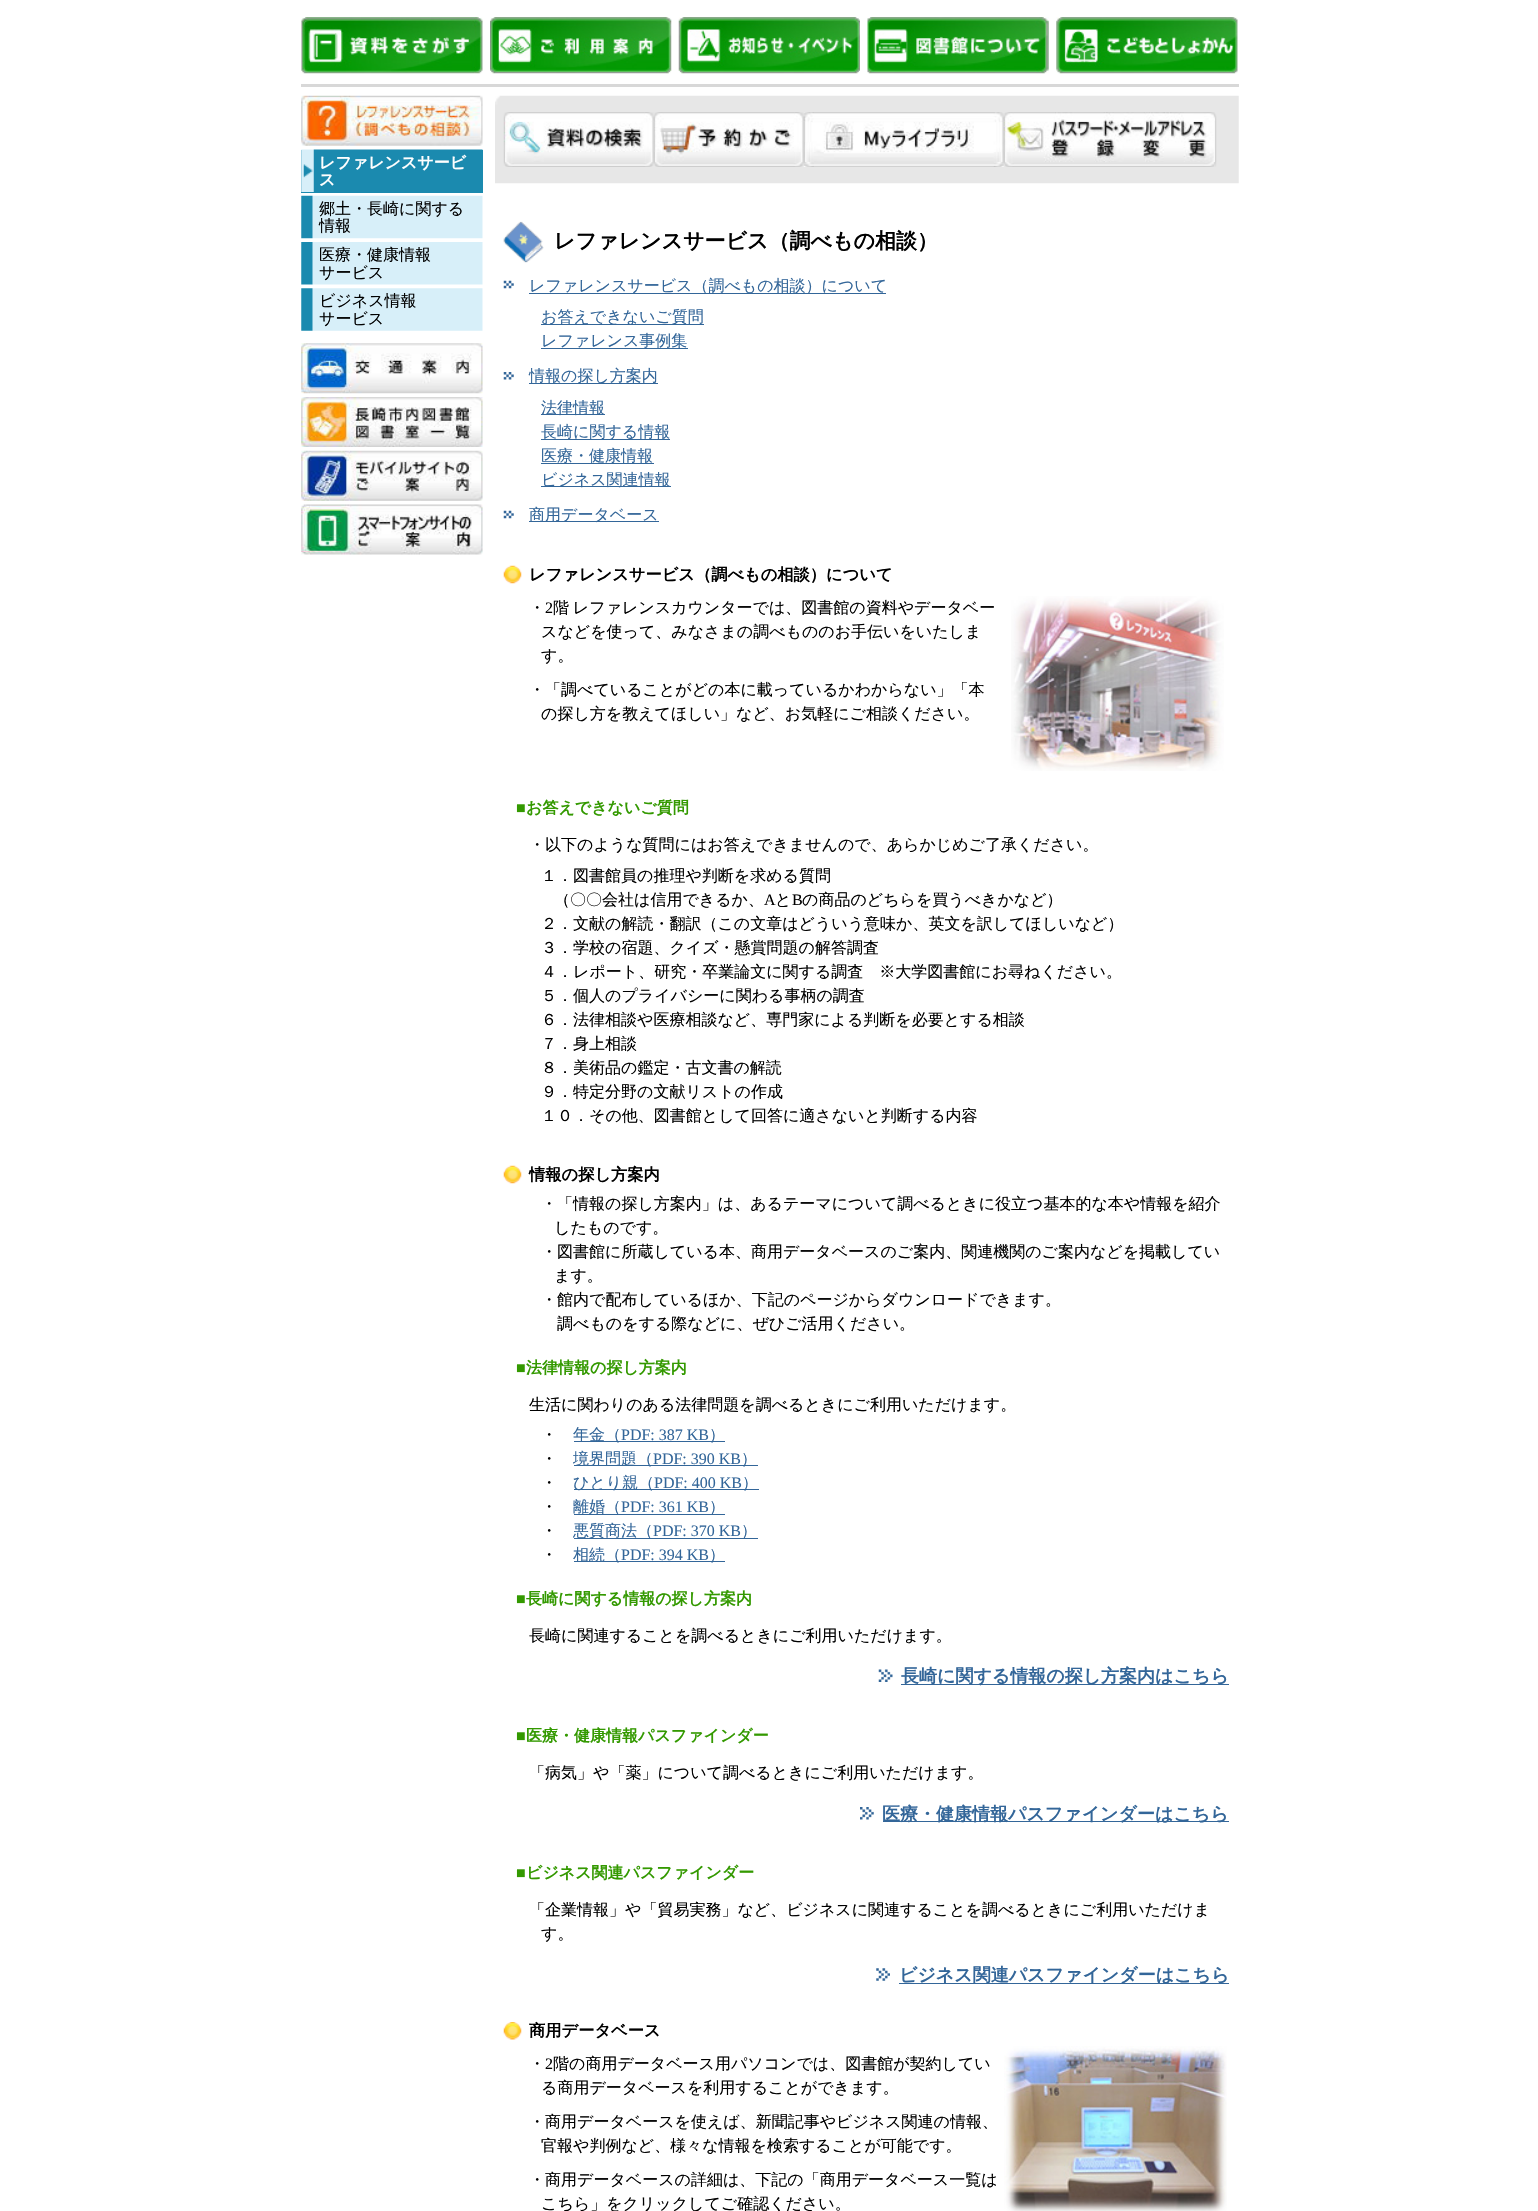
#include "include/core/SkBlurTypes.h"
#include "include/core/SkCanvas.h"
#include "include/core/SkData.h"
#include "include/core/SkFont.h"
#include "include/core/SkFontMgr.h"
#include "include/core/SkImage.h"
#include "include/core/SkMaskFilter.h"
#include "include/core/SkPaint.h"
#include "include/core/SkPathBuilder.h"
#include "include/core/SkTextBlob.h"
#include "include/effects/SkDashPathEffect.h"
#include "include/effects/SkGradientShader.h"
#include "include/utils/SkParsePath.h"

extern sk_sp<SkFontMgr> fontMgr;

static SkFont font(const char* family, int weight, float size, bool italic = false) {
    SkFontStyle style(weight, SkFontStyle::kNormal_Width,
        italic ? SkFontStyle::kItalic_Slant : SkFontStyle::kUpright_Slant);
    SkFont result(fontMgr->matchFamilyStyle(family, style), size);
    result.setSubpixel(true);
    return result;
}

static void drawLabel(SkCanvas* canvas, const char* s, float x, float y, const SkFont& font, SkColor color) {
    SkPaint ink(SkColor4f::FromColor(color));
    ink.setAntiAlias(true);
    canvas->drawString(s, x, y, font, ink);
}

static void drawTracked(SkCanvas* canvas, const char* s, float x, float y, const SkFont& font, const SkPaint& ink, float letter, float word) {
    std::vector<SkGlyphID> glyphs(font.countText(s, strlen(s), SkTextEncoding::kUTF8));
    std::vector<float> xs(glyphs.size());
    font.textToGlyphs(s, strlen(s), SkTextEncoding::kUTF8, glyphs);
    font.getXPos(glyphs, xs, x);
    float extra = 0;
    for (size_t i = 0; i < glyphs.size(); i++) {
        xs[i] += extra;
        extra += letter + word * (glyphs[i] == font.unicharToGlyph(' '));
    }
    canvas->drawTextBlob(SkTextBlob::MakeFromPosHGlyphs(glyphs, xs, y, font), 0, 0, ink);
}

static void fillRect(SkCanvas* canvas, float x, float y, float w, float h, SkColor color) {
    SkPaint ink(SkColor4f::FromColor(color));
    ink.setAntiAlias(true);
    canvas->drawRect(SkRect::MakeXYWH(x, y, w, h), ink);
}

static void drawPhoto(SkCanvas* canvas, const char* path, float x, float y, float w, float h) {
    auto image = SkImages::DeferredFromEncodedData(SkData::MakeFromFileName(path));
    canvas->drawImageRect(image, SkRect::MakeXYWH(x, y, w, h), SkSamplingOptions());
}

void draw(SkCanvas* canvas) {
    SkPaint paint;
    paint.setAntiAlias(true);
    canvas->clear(0xFFFFFFFF);
    fillRect(canvas, 301, 84, 938, 3, 0xFFD8D8D8);
    drawPhoto(canvas, "assets/img1.png", 301, 17, 182, 57);
    drawPhoto(canvas, "assets/img2.png", 490, 17, 182, 57);
    drawPhoto(canvas, "assets/img3.png", 678, 17, 182, 57);
    drawPhoto(canvas, "assets/img4.png", 867, 17, 182, 57);
    drawPhoto(canvas, "assets/img5.png", 1056, 17, 182, 57);
    drawPhoto(canvas, "assets/img6.png", 301, 95, 182, 51);
    fillRect(canvas, 301, 150, 182, 43, 0xFF1B8AAF);
    drawPhoto(canvas, "assets/img7.png", 301, 149, 182, 43);
    SkFont font1 = font("WenQuanYi Zen Hei", 700, 16);
    drawLabel(canvas, "レファレンスサービ", 319, 168, font1, 0xFFFFFFFF);
    drawLabel(canvas, "ス", 319, 185, font1, 0xFFFFFFFF);
    drawPhoto(canvas, "assets/img8.png", 301, 195, 182, 44);
    SkFont font2 = font("WenQuanYi Zen Hei", 500, 16);
    drawLabel(canvas, "郷土・長崎に関する", 319, 214, font2, 0xFF000000);
    drawLabel(canvas, "情報", 319, 231, font2, 0xFF000000);
    drawPhoto(canvas, "assets/img9.png", 301, 242, 182, 43);
    drawLabel(canvas, "医療・健康情報", 319, 260, font2, 0xFF000000);
    drawLabel(canvas, "サービス", 319, 278, font2, 0xFF000000);
    drawPhoto(canvas, "assets/img10.png", 301, 288, 182, 43);
    drawLabel(canvas, "ビジネス情報", 319, 306, font2, 0xFF000000);
    drawLabel(canvas, "サービス", 319, 324, font2, 0xFF000000);
    drawPhoto(canvas, "assets/img11.png", 301, 343, 182, 51);
    drawPhoto(canvas, "assets/img12.png", 301, 397, 182, 50);
    drawPhoto(canvas, "assets/img13.png", 301, 450, 182, 51);
    drawPhoto(canvas, "assets/img14.png", 301, 504, 182, 51);
    drawPhoto(canvas, "assets/img15.png", 495, 95, 744, 89);
    drawPhoto(canvas, "assets/img16.png", 503, 112, 151, 55);
    drawPhoto(canvas, "assets/img17.png", 654, 112, 150, 55);
    drawPhoto(canvas, "assets/img18.png", 803, 112, 201, 55);
    drawPhoto(canvas, "assets/img19.png", 1003, 112, 214, 55);
    drawPhoto(canvas, "assets/img20.png", 503, 221, 41, 42);
    SkFont font3 = font("WenQuanYi Zen Hei", 700, 21);
    drawLabel(canvas, "レファレンスサービス（調べもの相談）", 554, 248, font3, 0xFF000000);
    drawPhoto(canvas, "assets/img21.png", 503, 280, 11, 9);
    fillRect(canvas, 529, 293, 357, 1, 0xFF336699);
    drawLabel(canvas, "レファレンスサービス（調べもの相談）について", 529, 291, font2, 0xFF336699);
    fillRect(canvas, 541, 324, 163, 1, 0xFF336699);
    drawLabel(canvas, "お答えできないご質問", 541, 322, font2, 0xFF336699);
    fillRect(canvas, 541, 348, 147, 1, 0xFF336699);
    drawLabel(canvas, "レファレンス事例集", 541, 346, font2, 0xFF336699);
    drawPhoto(canvas, "assets/img22.png", 503, 372, 11, 8);
    fillRect(canvas, 529, 383, 129, 1, 0xFF336699);
    drawLabel(canvas, "情報の探し方案内", 529, 381, font2, 0xFF336699);
    fillRect(canvas, 541, 414, 64, 1, 0xFF336699);
    drawLabel(canvas, "法律情報", 541, 413, font2, 0xFF336699);
    fillRect(canvas, 541, 439, 129, 1, 0xFF336699);
    drawLabel(canvas, "長崎に関する情報", 541, 437, font2, 0xFF336699);
    fillRect(canvas, 541, 463, 113, 1, 0xFF336699);
    drawLabel(canvas, "医療・健康情報", 541, 461, font2, 0xFF336699);
    fillRect(canvas, 541, 486, 130, 1, 0xFF336699);
    drawLabel(canvas, "ビジネス関連情報", 541, 485, font2, 0xFF336699);
    drawPhoto(canvas, "assets/img21.png", 503, 510, 11, 9);
    fillRect(canvas, 529, 521, 130, 1, 0xFF336699);
    drawLabel(canvas, "商用データベース", 529, 520, font2, 0xFF336699);
    drawPhoto(canvas, "assets/img23.png", 503, 565, 19, 19);
    SkFont font4 = font("WenQuanYi Zen Hei", 700, 16.25f);
    drawLabel(canvas, "レファレンスサービス（調べもの相談）について", 529, 580, font4, 0xFF000000);
    drawLabel(canvas, "・", 529, 613, font2, 0xFF000000);
    SkFont font5 = font("Liberation Serif", 400, 16);
    drawLabel(canvas, "2", 545, 613, font5, 0xFF000000);
    paint.setColor(0xFF000000);
    drawTracked(canvas, "階 レファレンスカウンターでは、図書館の資料やデータベー", 553, 613, font2, paint, 0, -1);
    drawLabel(canvas, "スなどを使って、みなさまの調べもののお手伝いをいたしま", 541, 637, font2, 0xFF000000);
    drawLabel(canvas, "す。", 541, 661, font2, 0xFF000000);
    drawLabel(canvas, "・「調べていることがどの本に載っているかわからない」「本", 529, 695, font2, 0xFF000000);
    drawLabel(canvas, "の探し方を教えてほしい」など、お気軽にご相談ください。", 541, 719, font2, 0xFF000000);
    drawPhoto(canvas, "assets/img24.png", 1011, 596, 213, 175);
    SkFont font6 = font("Liberation Sans", 700, 16);
    drawLabel(canvas, "■", 516, 813, font6, 0xFF339900);
    drawLabel(canvas, "お答えできないご質問", 526, 813, font1, 0xFF339900);
    drawLabel(canvas, "・以下のような質問にはお答えできませんので、あらかじめご了承ください。", 529, 850, font2, 0xFF000000);
    drawLabel(canvas, "１．図書館員の推理や判断を求める質問", 541, 881, font2, 0xFF000000);
    drawLabel(canvas, "（〇〇会社は信用できるか、", 554, 905, font2, 0xFF000000);
    drawLabel(canvas, "A", 764, 905, font5, 0xFF000000);
    drawLabel(canvas, "と", 775, 905, font2, 0xFF000000);
    drawLabel(canvas, "B", 792, 905, font5, 0xFF000000);
    drawLabel(canvas, "の商品のどちらを買うべきかなど）", 802, 905, font2, 0xFF000000);
    drawLabel(canvas, "２．文献の解読・翻訳（この文章はどういう意味か、英文を訳してほしいなど）", 541, 929, font2, 0xFF000000);
    drawLabel(canvas, "３．学校の宿題、クイズ・懸賞問題の解答調査", 541, 953, font2, 0xFF000000);
    drawLabel(canvas, "４．レポート、研究・卒業論文に関する調査　※大学図書館にお尋ねください。", 541, 977, font2, 0xFF000000);
    drawLabel(canvas, "５．個人のプライバシーに関わる事柄の調査", 541, 1001, font2, 0xFF000000);
    drawLabel(canvas, "６．法律相談や医療相談など、専門家による判断を必要とする相談", 541, 1025, font2, 0xFF000000);
    drawLabel(canvas, "７．身上相談", 541, 1049, font2, 0xFF000000);
    drawLabel(canvas, "８．美術品の鑑定・古文書の解読", 541, 1073, font2, 0xFF000000);
    drawLabel(canvas, "９．特定分野の文献リストの作成", 541, 1097, font2, 0xFF000000);
    drawLabel(canvas, "１０．その他、図書館として回答に適さないと判断する内容", 541, 1121, font2, 0xFF000000);
    drawPhoto(canvas, "assets/img23.png", 503, 1165, 19, 19);
    drawLabel(canvas, "情報の探し方案内", 529, 1180, font4, 0xFF000000);
    drawLabel(canvas, "・「情報の探し方案内」は、あるテーマについて調べるときに役立つ基本的な本や情報を紹介", 541, 1209, font2, 0xFF000000);
    drawLabel(canvas, "したものです。", 554, 1233, font2, 0xFF000000);
    drawLabel(canvas, "・図書館に所蔵している本、商用データベースのご案内、関連機関のご案内などを掲載してい", 541, 1257, font2, 0xFF000000);
    drawLabel(canvas, "ます。", 554, 1281, font2, 0xFF000000);
    drawLabel(canvas, "・館内で配布しているほか、下記のページからダウンロードできます。", 541, 1305, font2, 0xFF000000);
    drawLabel(canvas, "調べものをする際などに、ぜひご活用ください。", 557, 1329, font2, 0xFF000000);
    drawLabel(canvas, "■", 516, 1373, font6, 0xFF339900);
    drawLabel(canvas, "法律情報の探し方案内", 526, 1373, font1, 0xFF339900);
    drawLabel(canvas, "生活に関わりのある法律問題を調べるときにご利用いただけます。", 529, 1410, font2, 0xFF000000);
    drawLabel(canvas, "・", 541, 1440, font2, 0xFF000000);
    fillRect(canvas, 574, 1441, 151, 1, 0xFF336699);
    drawLabel(canvas, "年金（", 573, 1440, font2, 0xFF336699);
    drawLabel(canvas, "PDF: 387 KB", 621, 1440, font5, 0xFF336699);
    drawLabel(canvas, "）", 709, 1440, font2, 0xFF336699);
    drawLabel(canvas, "・", 541, 1464, font2, 0xFF000000);
    fillRect(canvas, 574, 1465, 184, 1, 0xFF336699);
    drawLabel(canvas, "境界問題（", 573, 1464, font2, 0xFF336699);
    drawLabel(canvas, "PDF: 390 KB", 653, 1464, font5, 0xFF336699);
    drawLabel(canvas, "）", 741, 1464, font2, 0xFF336699);
    drawLabel(canvas, "・", 541, 1488, font2, 0xFF000000);
    fillRect(canvas, 574, 1489, 185, 1, 0xFF336699);
    drawLabel(canvas, "ひとり親（", 573, 1488, font2, 0xFF336699);
    drawLabel(canvas, "PDF: 400 KB", 654, 1488, font5, 0xFF336699);
    drawLabel(canvas, "）", 742, 1488, font2, 0xFF336699);
    drawLabel(canvas, "・", 541, 1512, font2, 0xFF000000);
    fillRect(canvas, 574, 1514, 151, 1, 0xFF336699);
    drawLabel(canvas, "離婚（", 573, 1512, font2, 0xFF336699);
    drawLabel(canvas, "PDF: 361 KB", 621, 1512, font5, 0xFF336699);
    drawLabel(canvas, "）", 709, 1512, font2, 0xFF336699);
    drawLabel(canvas, "・", 541, 1536, font2, 0xFF000000);
    fillRect(canvas, 574, 1538, 184, 1, 0xFF336699);
    drawLabel(canvas, "悪質商法（", 573, 1536, font2, 0xFF336699);
    drawLabel(canvas, "PDF: 370 KB", 653, 1536, font5, 0xFF336699);
    drawLabel(canvas, "）", 741, 1536, font2, 0xFF336699);
    drawLabel(canvas, "・", 541, 1560, font2, 0xFF000000);
    fillRect(canvas, 574, 1561, 151, 1, 0xFF336699);
    drawLabel(canvas, "相続（", 573, 1560, font2, 0xFF336699);
    drawLabel(canvas, "PDF: 394 KB", 621, 1560, font5, 0xFF336699);
    drawLabel(canvas, "）", 709, 1560, font2, 0xFF336699);
    drawLabel(canvas, "■", 516, 1604, font6, 0xFF339900);
    drawLabel(canvas, "長崎に関する情報の探し方案内", 526, 1604, font1, 0xFF339900);
    drawLabel(canvas, "長崎に関連することを調べるときにご利用いただけます。", 529, 1641, font2, 0xFF000000);
    drawPhoto(canvas, "assets/img25.png", 878, 1669, 15, 13);
    fillRect(canvas, 901, 1684, 328, 1, 0xFF336699);
    SkFont font7 = font("WenQuanYi Zen Hei", 700, 18);
    drawLabel(canvas, "長崎に関する情報の探し方案内はこちら", 901, 1682, font7, 0xFF336699);
    drawLabel(canvas, "■", 516, 1741, font6, 0xFF339900);
    drawLabel(canvas, "医療・健康情報パスファインダー", 526, 1741, font1, 0xFF339900);
    drawLabel(canvas, "「病気」や「薬」について調べるときにご利用いただけます。", 529, 1778, font2, 0xFF000000);
    drawPhoto(canvas, "assets/img26.png", 860, 1807, 14, 13);
    fillRect(canvas, 883, 1821, 346, 1, 0xFF336699);
    drawLabel(canvas, "医療・健康情報パスファインダーはこちら", 882, 1820, font7, 0xFF336699);
    drawLabel(canvas, "■", 516, 1878, font6, 0xFF339900);
    drawLabel(canvas, "ビジネス関連パスファインダー", 526, 1878, font1, 0xFF339900);
    drawLabel(canvas, "「企業情報」や「貿易実務」など、ビジネスに関連することを調べるときにご利用いただけま", 529, 1915, font2, 0xFF000000);
    drawLabel(canvas, "す。", 541, 1939, font2, 0xFF000000);
    drawPhoto(canvas, "assets/img27.png", 876, 1968, 14, 13);
    fillRect(canvas, 899, 1983, 330, 1, 0xFF336699);
    drawLabel(canvas, "ビジネス関連パスファインダーはこちら", 899, 1981, font7, 0xFF336699);
    drawPhoto(canvas, "assets/img28.png", 503, 2022, 19, 18);
    drawLabel(canvas, "商用データベース", 529, 2036, font4, 0xFF000000);
    drawLabel(canvas, "・", 529, 2069, font2, 0xFF000000);
    drawLabel(canvas, "2", 545, 2069, font5, 0xFF000000);
    drawLabel(canvas, "階の商用データベース用パソコンでは、図書館が契約してい", 553, 2069, font2, 0xFF000000);
    drawLabel(canvas, "る商用データベースを利用することができます。", 541, 2093, font2, 0xFF000000);
    drawLabel(canvas, "・商用データベースを使えば、新聞記事やビジネス関連の情報、", 529, 2127, font2, 0xFF000000);
    drawLabel(canvas, "官報や判例など、様々な情報を検索することが可能です。", 541, 2151, font2, 0xFF000000);
    drawLabel(canvas, "・商用データベースの詳細は、下記の「商用データベース一覧は", 529, 2185, font2, 0xFF000000);
    drawLabel(canvas, "こちら」をクリックしてご確認ください。", 541, 2209, font2, 0xFF000000);
    drawPhoto(canvas, "assets/img29.png", 1004, 2046, 223, 165);
}
